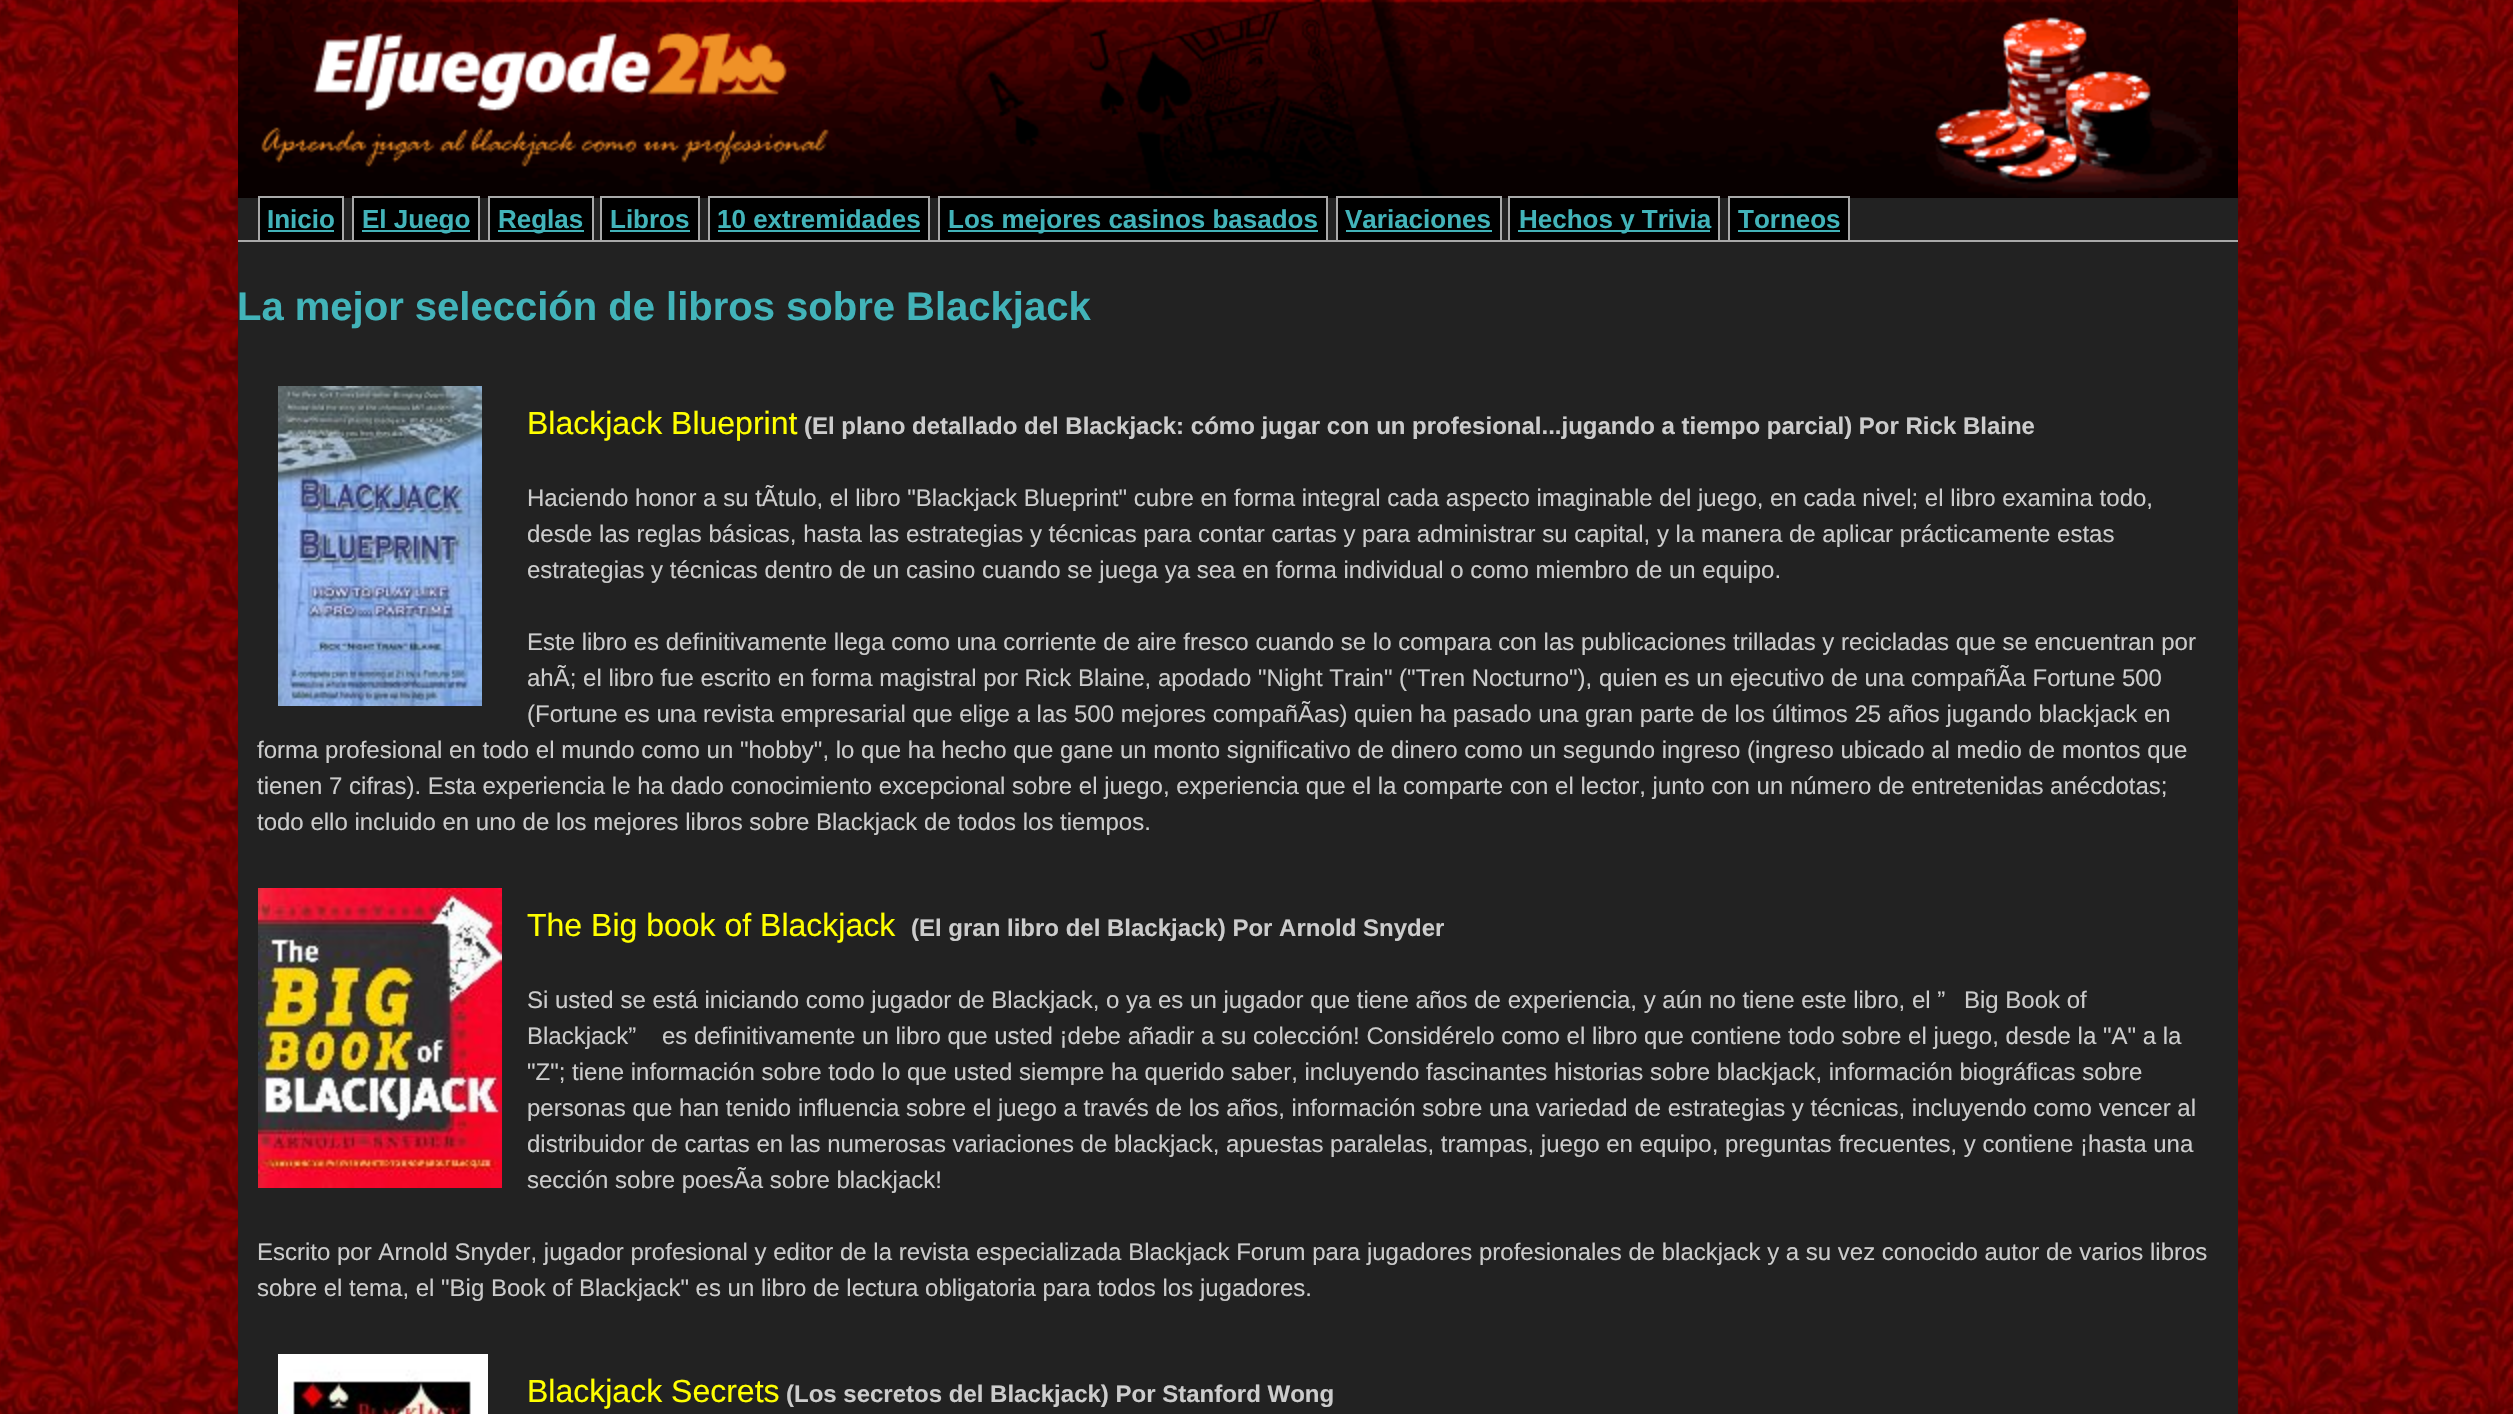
#include "include/core/SkBlurTypes.h"
#include "include/core/SkCanvas.h"
#include "include/core/SkData.h"
#include "include/core/SkFont.h"
#include "include/core/SkFontMgr.h"
#include "include/core/SkImage.h"
#include "include/core/SkMaskFilter.h"
#include "include/core/SkPaint.h"
#include "include/core/SkPathBuilder.h"
#include "include/core/SkTextBlob.h"
#include "include/effects/SkDashPathEffect.h"
#include "include/effects/SkGradientShader.h"
#include "include/utils/SkParsePath.h"

extern sk_sp<SkFontMgr> fontMgr;

static SkFont font(const char* family, int weight, float size, bool italic = false) {
    SkFontStyle style(weight, SkFontStyle::kNormal_Width,
        italic ? SkFontStyle::kItalic_Slant : SkFontStyle::kUpright_Slant);
    SkFont result(fontMgr->matchFamilyStyle(family, style), size);
    result.setSubpixel(true);
    return result;
}

static void drawLabel(SkCanvas* canvas, const char* s, float x, float y, const SkFont& font, SkColor color) {
    SkPaint ink(SkColor4f::FromColor(color));
    ink.setAntiAlias(true);
    canvas->drawString(s, x, y, font, ink);
}

static void fillRect(SkCanvas* canvas, float x, float y, float w, float h, SkColor color) {
    SkPaint ink(SkColor4f::FromColor(color));
    ink.setAntiAlias(true);
    canvas->drawRect(SkRect::MakeXYWH(x, y, w, h), ink);
}

static void drawPhoto(SkCanvas* canvas, const char* path, float x, float y, float w, float h) {
    auto image = SkImages::DeferredFromEncodedData(SkData::MakeFromFileName(path));
    canvas->drawImageRect(image, SkRect::MakeXYWH(x, y, w, h), SkSamplingOptions());
}

void draw(SkCanvas* canvas) {
    SkPaint paint;
    paint.setAntiAlias(true);
    canvas->clear(0xFFFFFFFF);
    drawPhoto(canvas, "assets/img1.png", 0, 0, 2513, 1414);
    drawPhoto(canvas, "assets/img2.png", 238, 0, 2000, 198);
    fillRect(canvas, 238, 198, 2000, 1216, 0xFF222222);
    fillRect(canvas, 238, 240, 2000, 2, 0xFFA9A9A9);
    fillRect(canvas, 260, 198, 82, 42, 0xFF000000);
    SkFont font1 = font("Liberation Sans", 700, 26);
    drawLabel(canvas, "Inicio", 267, 228, font1, 0xFF42B3B9);
    fillRect(canvas, 258, 196, 86, 2, 0xFFA9A9A9);
    fillRect(canvas, 342, 196, 2, 44, 0xFFA9A9A9);
    fillRect(canvas, 258, 196, 2, 44, 0xFFA9A9A9);
    fillRect(canvas, 268, 230, 66, 2, 0xFF42B3B9);
    fillRect(canvas, 354, 198, 124, 42, 0xFF000000);
    fillRect(canvas, 362, 230, 108, 2, 0xFF42B3B9);
    drawLabel(canvas, "El Juego", 362, 228, font1, 0xFF42B3B9);
    fillRect(canvas, 352, 196, 128, 2, 0xFFA9A9A9);
    fillRect(canvas, 478, 196, 2, 44, 0xFFA9A9A9);
    fillRect(canvas, 352, 196, 2, 44, 0xFFA9A9A9);
    fillRect(canvas, 490, 198, 102, 42, 0xFF000000);
    fillRect(canvas, 498, 230, 86, 2, 0xFF42B3B9);
    drawLabel(canvas, "Reglas", 498, 228, font1, 0xFF42B3B9);
    fillRect(canvas, 488, 196, 106, 2, 0xFFA9A9A9);
    fillRect(canvas, 592, 196, 2, 44, 0xFFA9A9A9);
    fillRect(canvas, 488, 196, 2, 44, 0xFFA9A9A9);
    fillRect(canvas, 602, 198, 96, 42, 0xFF000000);
    drawLabel(canvas, "Libros", 610, 228, font1, 0xFF42B3B9);
    fillRect(canvas, 600, 196, 100, 2, 0xFFA9A9A9);
    fillRect(canvas, 698, 196, 2, 44, 0xFFA9A9A9);
    fillRect(canvas, 600, 196, 2, 44, 0xFFA9A9A9);
    fillRect(canvas, 610, 230, 80, 2, 0xFF42B3B9);
    fillRect(canvas, 710, 198, 218, 42, 0xFF000000);
    drawLabel(canvas, "10 extremidades", 717, 228, font1, 0xFF42B3B9);
    fillRect(canvas, 708, 196, 222, 2, 0xFFA9A9A9);
    fillRect(canvas, 928, 196, 2, 44, 0xFFA9A9A9);
    fillRect(canvas, 708, 196, 2, 44, 0xFFA9A9A9);
    fillRect(canvas, 718, 230, 202, 2, 0xFF42B3B9);
    fillRect(canvas, 940, 198, 386, 42, 0xFF000000);
    fillRect(canvas, 948, 230, 370, 2, 0xFF42B3B9);
    drawLabel(canvas, "Los mejores casinos basados", 948, 228, font1, 0xFF42B3B9);
    fillRect(canvas, 938, 196, 390, 2, 0xFFA9A9A9);
    fillRect(canvas, 1326, 196, 2, 44, 0xFFA9A9A9);
    fillRect(canvas, 938, 196, 2, 44, 0xFFA9A9A9);
    fillRect(canvas, 1338, 198, 162, 42, 0xFF000000);
    drawLabel(canvas, "Variaciones", 1345, 228, font1, 0xFF42B3B9);
    fillRect(canvas, 1336, 196, 166, 2, 0xFFA9A9A9);
    fillRect(canvas, 1500, 196, 2, 44, 0xFFA9A9A9);
    fillRect(canvas, 1336, 196, 2, 44, 0xFFA9A9A9);
    fillRect(canvas, 1346, 230, 146, 2, 0xFF42B3B9);
    fillRect(canvas, 1510, 198, 208, 42, 0xFF000000);
    fillRect(canvas, 1518, 230, 192, 2, 0xFF42B3B9);
    drawLabel(canvas, "Hechos y Trivia", 1519, 228, font1, 0xFF42B3B9);
    fillRect(canvas, 1508, 196, 212, 2, 0xFFA9A9A9);
    fillRect(canvas, 1718, 196, 2, 44, 0xFFA9A9A9);
    fillRect(canvas, 1508, 196, 2, 44, 0xFFA9A9A9);
    fillRect(canvas, 1730, 198, 118, 42, 0xFF000000);
    drawLabel(canvas, "Torneos", 1738, 228, font1, 0xFF42B3B9);
    fillRect(canvas, 1728, 196, 122, 2, 0xFFA9A9A9);
    fillRect(canvas, 1848, 196, 2, 44, 0xFFA9A9A9);
    fillRect(canvas, 1728, 196, 2, 44, 0xFFA9A9A9);
    fillRect(canvas, 1738, 230, 102, 2, 0xFF42B3B9);
    SkFont font2 = font("Liberation Sans", 700, 40);
    drawLabel(canvas, "La mejor selección de libros sobre Blackjack", 237, 320, font2, 0xFF42B3B9);
    drawPhoto(canvas, "assets/img3.png", 278, 386, 204, 320);
    SkFont font3 = font("Liberation Sans", 400, 32);
    drawLabel(canvas, "Blackjack Blueprint", 527, 434, font3, 0xFFFFFF00);
    SkFont font4 = font("Liberation Sans", 700, 24);
    drawLabel(canvas, "(El plano detallado del Blackjack: cómo jugar con un profesional...jugando a tiempo parcial) Por Rick Blaine", 804, 434, font4, 0xFFCCCCCC);
    SkFont font5 = font("Liberation Sans", 400, 24);
    drawLabel(canvas, "Haciendo honor a su tÃtulo, el libro \"Blackjack Blueprint\" cubre en forma integral cada aspecto imaginable del juego, en cada nivel; el libro examina todo,", 527, 506, font5, 0xFFCCCCCC);
    drawLabel(canvas, "desde las reglas básicas, hasta las estrategias y técnicas para contar cartas y para administrar su capital, y la manera de aplicar prácticamente estas", 527, 542, font5, 0xFFCCCCCC);
    drawLabel(canvas, "estrategias y técnicas dentro de un casino cuando se juega ya sea en forma individual o como miembro de un equipo.", 527, 578, font5, 0xFFCCCCCC);
    drawLabel(canvas, "Este libro es definitivamente llega como una corriente de aire fresco cuando se lo compara con las publicaciones trilladas y recicladas que se encuentran por", 527, 650, font5, 0xFFCCCCCC);
    drawLabel(canvas, "ahÃ; el libro fue escrito en forma magistral por Rick Blaine, apodado \"Night Train\" (\"Tren Nocturno\"), quien es un ejecutivo de una compañÃa Fortune 500", 527, 686, font5, 0xFFCCCCCC);
    drawLabel(canvas, "(Fortune es una revista empresarial que elige a las 500 mejores compañÃas) quien ha pasado una gran parte de los últimos 25 años jugando blackjack en", 527, 722, font5, 0xFFCCCCCC);
    drawLabel(canvas, "forma profesional en todo el mundo como un \"hobby\", lo que ha hecho que gane un monto significativo de dinero como un segundo ingreso (ingreso ubicado al medio de montos que", 257, 758, font5, 0xFFCCCCCC);
    drawLabel(canvas, "tienen 7 cifras). Esta experiencia le ha dado conocimiento excepcional sobre el juego, experiencia que el la comparte con el lector, junto con un número de entretenidas anécdotas;", 257, 794, font5, 0xFFCCCCCC);
    drawLabel(canvas, "todo ello incluido en uno de los mejores libros sobre Blackjack de todos los tiempos.", 257, 830, font5, 0xFFCCCCCC);
    drawPhoto(canvas, "assets/img4.png", 258, 888, 244, 300);
    drawLabel(canvas, "The Big book of Blackjack", 527, 936, font3, 0xFFFFFF00);
    drawLabel(canvas, "(El gran libro del Blackjack) Por Arnold Snyder", 911, 936, font4, 0xFFCCCCCC);
    drawLabel(canvas, "Si usted se está iniciando como jugador de Blackjack, o ya es un jugador que tiene años de experiencia, y aún no tiene este libro, el ”", 527, 1008, font5, 0xFFCCCCCC);
    drawLabel(canvas, "Big Book of", 1964, 1008, font5, 0xFFCCCCCC);
    drawLabel(canvas, "Blackjack”", 527, 1044, font5, 0xFFCCCCCC);
    drawLabel(canvas, "es definitivamente un libro que usted ¡debe añadir a su colección! Considérelo como el libro que contiene todo sobre el juego, desde la \"A\" a la", 662, 1044, font5, 0xFFCCCCCC);
    drawLabel(canvas, "\"Z\"; tiene información sobre todo lo que usted siempre ha querido saber, incluyendo fascinantes historias sobre blackjack, información biográficas sobre", 527, 1080, font5, 0xFFCCCCCC);
    drawLabel(canvas, "personas que han tenido influencia sobre el juego a través de los años, información sobre una variedad de estrategias y técnicas, incluyendo como vencer al", 527, 1116, font5, 0xFFCCCCCC);
    drawLabel(canvas, "distribuidor de cartas en las numerosas variaciones de blackjack, apuestas paralelas, trampas, juego en equipo, preguntas frecuentes, y contiene ¡hasta una", 527, 1152, font5, 0xFFCCCCCC);
    drawLabel(canvas, "sección sobre poesÃa sobre blackjack!", 527, 1188, font5, 0xFFCCCCCC);
    drawLabel(canvas, "Escrito por Arnold Snyder, jugador profesional y editor de la revista especializada Blackjack Forum para jugadores profesionales de blackjack y a su vez conocido autor de varios libros", 257, 1260, font5, 0xFFCCCCCC);
    drawLabel(canvas, "sobre el tema, el \"Big Book of Blackjack\" es un libro de lectura obligatoria para todos los jugadores.", 257, 1296, font5, 0xFFCCCCCC);
    drawPhoto(canvas, "assets/img5.png", 278, 1354, 210, 60);
    drawLabel(canvas, "Blackjack Secrets", 527, 1402, font3, 0xFFFFFF00);
    drawLabel(canvas, "(Los secretos del Blackjack) Por Stanford Wong", 786, 1402, font4, 0xFFCCCCCC);
}
